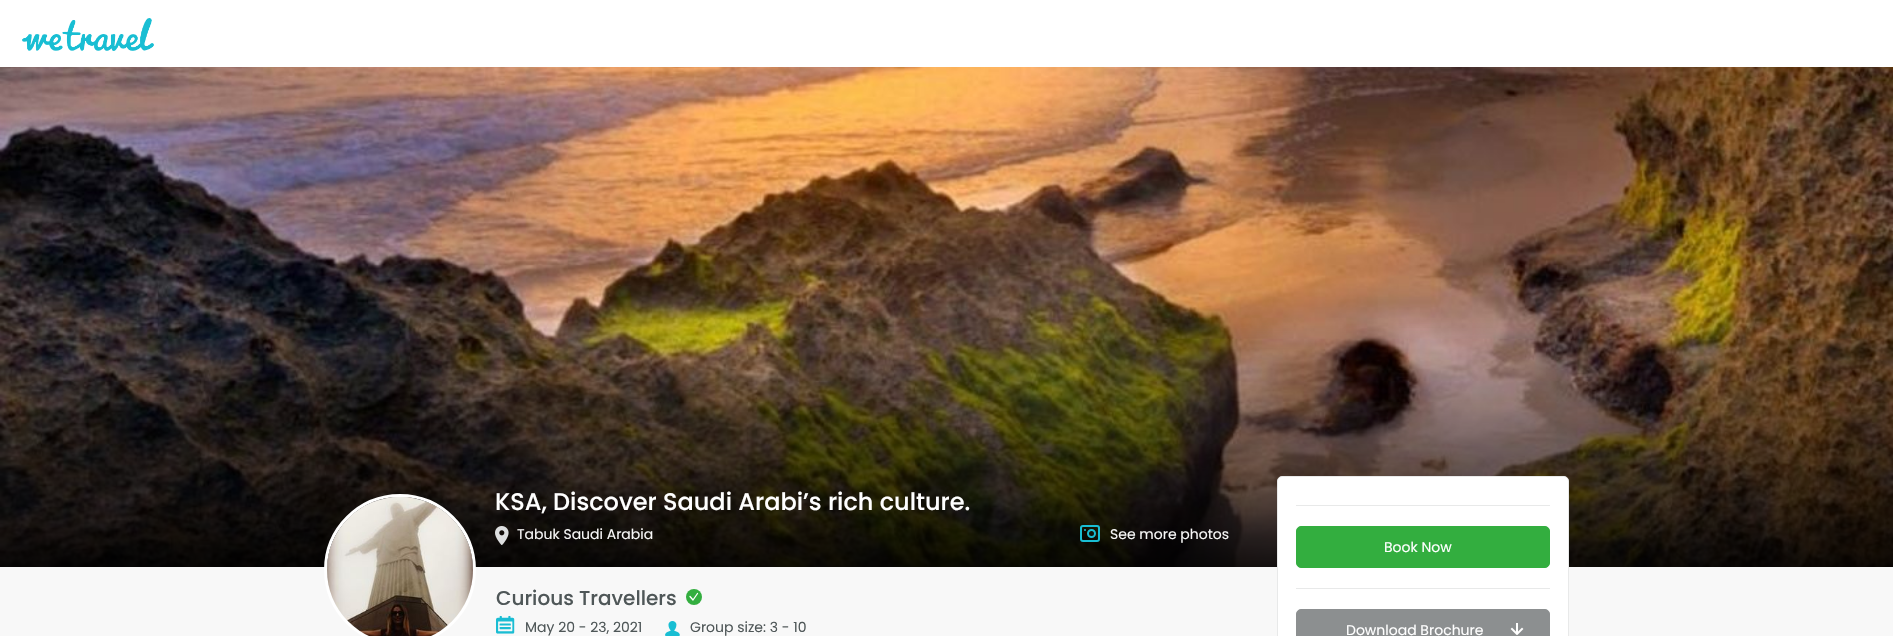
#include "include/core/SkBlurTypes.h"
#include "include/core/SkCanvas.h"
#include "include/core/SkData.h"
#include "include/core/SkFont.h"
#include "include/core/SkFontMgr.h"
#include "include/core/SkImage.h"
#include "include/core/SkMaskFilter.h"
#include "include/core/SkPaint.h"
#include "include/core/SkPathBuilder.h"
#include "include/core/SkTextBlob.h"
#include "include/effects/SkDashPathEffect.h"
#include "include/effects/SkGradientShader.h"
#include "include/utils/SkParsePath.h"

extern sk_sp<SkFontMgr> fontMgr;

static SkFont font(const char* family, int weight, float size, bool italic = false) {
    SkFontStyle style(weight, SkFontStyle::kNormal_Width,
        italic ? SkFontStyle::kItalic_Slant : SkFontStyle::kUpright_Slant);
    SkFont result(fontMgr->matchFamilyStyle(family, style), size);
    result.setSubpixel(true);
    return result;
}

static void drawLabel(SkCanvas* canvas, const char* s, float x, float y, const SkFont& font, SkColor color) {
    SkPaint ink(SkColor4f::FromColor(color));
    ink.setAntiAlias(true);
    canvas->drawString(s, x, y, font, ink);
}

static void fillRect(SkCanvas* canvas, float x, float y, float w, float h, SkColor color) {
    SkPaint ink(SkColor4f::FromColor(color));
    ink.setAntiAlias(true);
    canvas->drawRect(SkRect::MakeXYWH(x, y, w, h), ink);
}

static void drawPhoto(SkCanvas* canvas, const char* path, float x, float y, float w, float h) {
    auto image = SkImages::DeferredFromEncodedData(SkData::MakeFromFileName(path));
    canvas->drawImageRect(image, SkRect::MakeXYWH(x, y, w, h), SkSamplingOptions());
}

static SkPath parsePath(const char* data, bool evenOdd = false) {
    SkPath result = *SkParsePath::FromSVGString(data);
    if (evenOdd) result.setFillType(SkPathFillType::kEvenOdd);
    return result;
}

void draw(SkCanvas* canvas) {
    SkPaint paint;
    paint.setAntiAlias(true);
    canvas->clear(0xFFFFFFFF);
    drawPhoto(canvas, "assets/img1.png", 22, 18, 132, 33);
    fillRect(canvas, 0, 567, 1893, 69, 0xFFF8F8F8);
    drawPhoto(canvas, "assets/img2.png", 0, 67, 1893, 500);
    SkFont font1 = font("Poppins", 500, 24);
    drawLabel(canvas, "KSA, Discover Saudi Arabi’s rich culture.", 495, 510, font1, 0xFFFFFFFF);
    drawPhoto(canvas, "assets/img3.png", 495, 526, 14, 19);
    SkFont font2 = font("Poppins", 400, 14);
    drawLabel(canvas, "Tabuk Saudi Arabia", 517, 539, font2, 0xFFF8F8F8);
    drawPhoto(canvas, "assets/img4.png", 1080, 525, 20, 17);
    drawLabel(canvas, "See more photos", 1110, 539, font2, 0xFFF8F8F8);
    paint.setStroke(true);
    paint.setStrokeWidth(3);
    paint.setColor(0xFFFFFFFF);
    canvas->drawCircle(400, 570, 74.5f, paint);
    paint.setStroke(false);
    paint.setColor(0xFFF4F4F4);
    canvas->drawCircle(400, 570, 73, paint);
    drawPhoto(canvas, "assets/img5.png", 327, 497, 146, 139);
    SkFont font3 = font("Poppins", 500, 20);
    drawLabel(canvas, "Curious Travellers", 496, 605, font3, 0xFF4F5758);
    paint.setColor(0xFF33AE3F);
    canvas->drawCircle(694, 597, 8, paint);
    paint.setStroke(true);
    paint.setStrokeWidth(1.3f);
    paint.setStrokeCap(SkPaint::kRound_Cap);
    paint.setStrokeJoin(SkPaint::kRound_Join);
    paint.setColor(0xFFFFFFFF);
    canvas->drawPath(parsePath("M690 596.5L693 600L697.5 593.5"), paint);
    drawPhoto(canvas, "assets/img6.png", 496, 616, 19, 18);
    drawLabel(canvas, "May 20 - 23, 2021", 525, 632, font2, 0xFF4F5758);
    drawPhoto(canvas, "assets/img7.png", 665, 621, 15, 15);
    drawLabel(canvas, "Group size: 3 - 10", 690, 632, font2, 0xFF4F5758);
    paint.setStroke(false);
    canvas->drawRoundRect(SkRect::MakeXYWH(1277.5f, 476.5f, 291, 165), 4.5f, 4.5f, paint);
    paint.setStroke(true);
    paint.setStrokeWidth(1);
    paint.setStrokeCap(SkPaint::kButt_Cap);
    paint.setStrokeJoin(SkPaint::kMiter_Join);
    paint.setColor(0xFFE8E9E9);
    canvas->drawRoundRect(SkRect::MakeXYWH(1277.5f, 476.5f, 291, 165), 4.5f, 4.5f, paint);
    fillRect(canvas, 1296, 505, 254, 1, 0xFFE8E9E9);
    paint.setStroke(false);
    paint.setColor(0xFF33AE3F);
    canvas->drawRoundRect(SkRect::MakeXYWH(1296.5f, 526.5f, 253, 41), 4.5f, 4.5f, paint);
    paint.setStroke(true);
    canvas->drawRoundRect(SkRect::MakeXYWH(1296.5f, 526.5f, 253, 41), 4.5f, 4.5f, paint);
    drawLabel(canvas, "Book Now", 1384, 552, font2, 0xFFFFFFFF);
    fillRect(canvas, 1296, 588, 254, 1, 0xFFE8E9E9);
    paint.setStroke(false);
    paint.setColor(0xFF8C8F90);
    canvas->drawRoundRect(SkRect::MakeXYWH(1296.5f, 609.5f, 253, 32), 4.5f, 4.5f, paint);
    paint.setStroke(true);
    canvas->drawRoundRect(SkRect::MakeXYWH(1296.5f, 609.5f, 253, 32), 4.5f, 4.5f, paint);
    drawLabel(canvas, "Download Brochure", 1346, 635, font2, 0xFFFFFFFF);
    drawPhoto(canvas, "assets/img8.png", 1510, 623, 14, 12);
}
